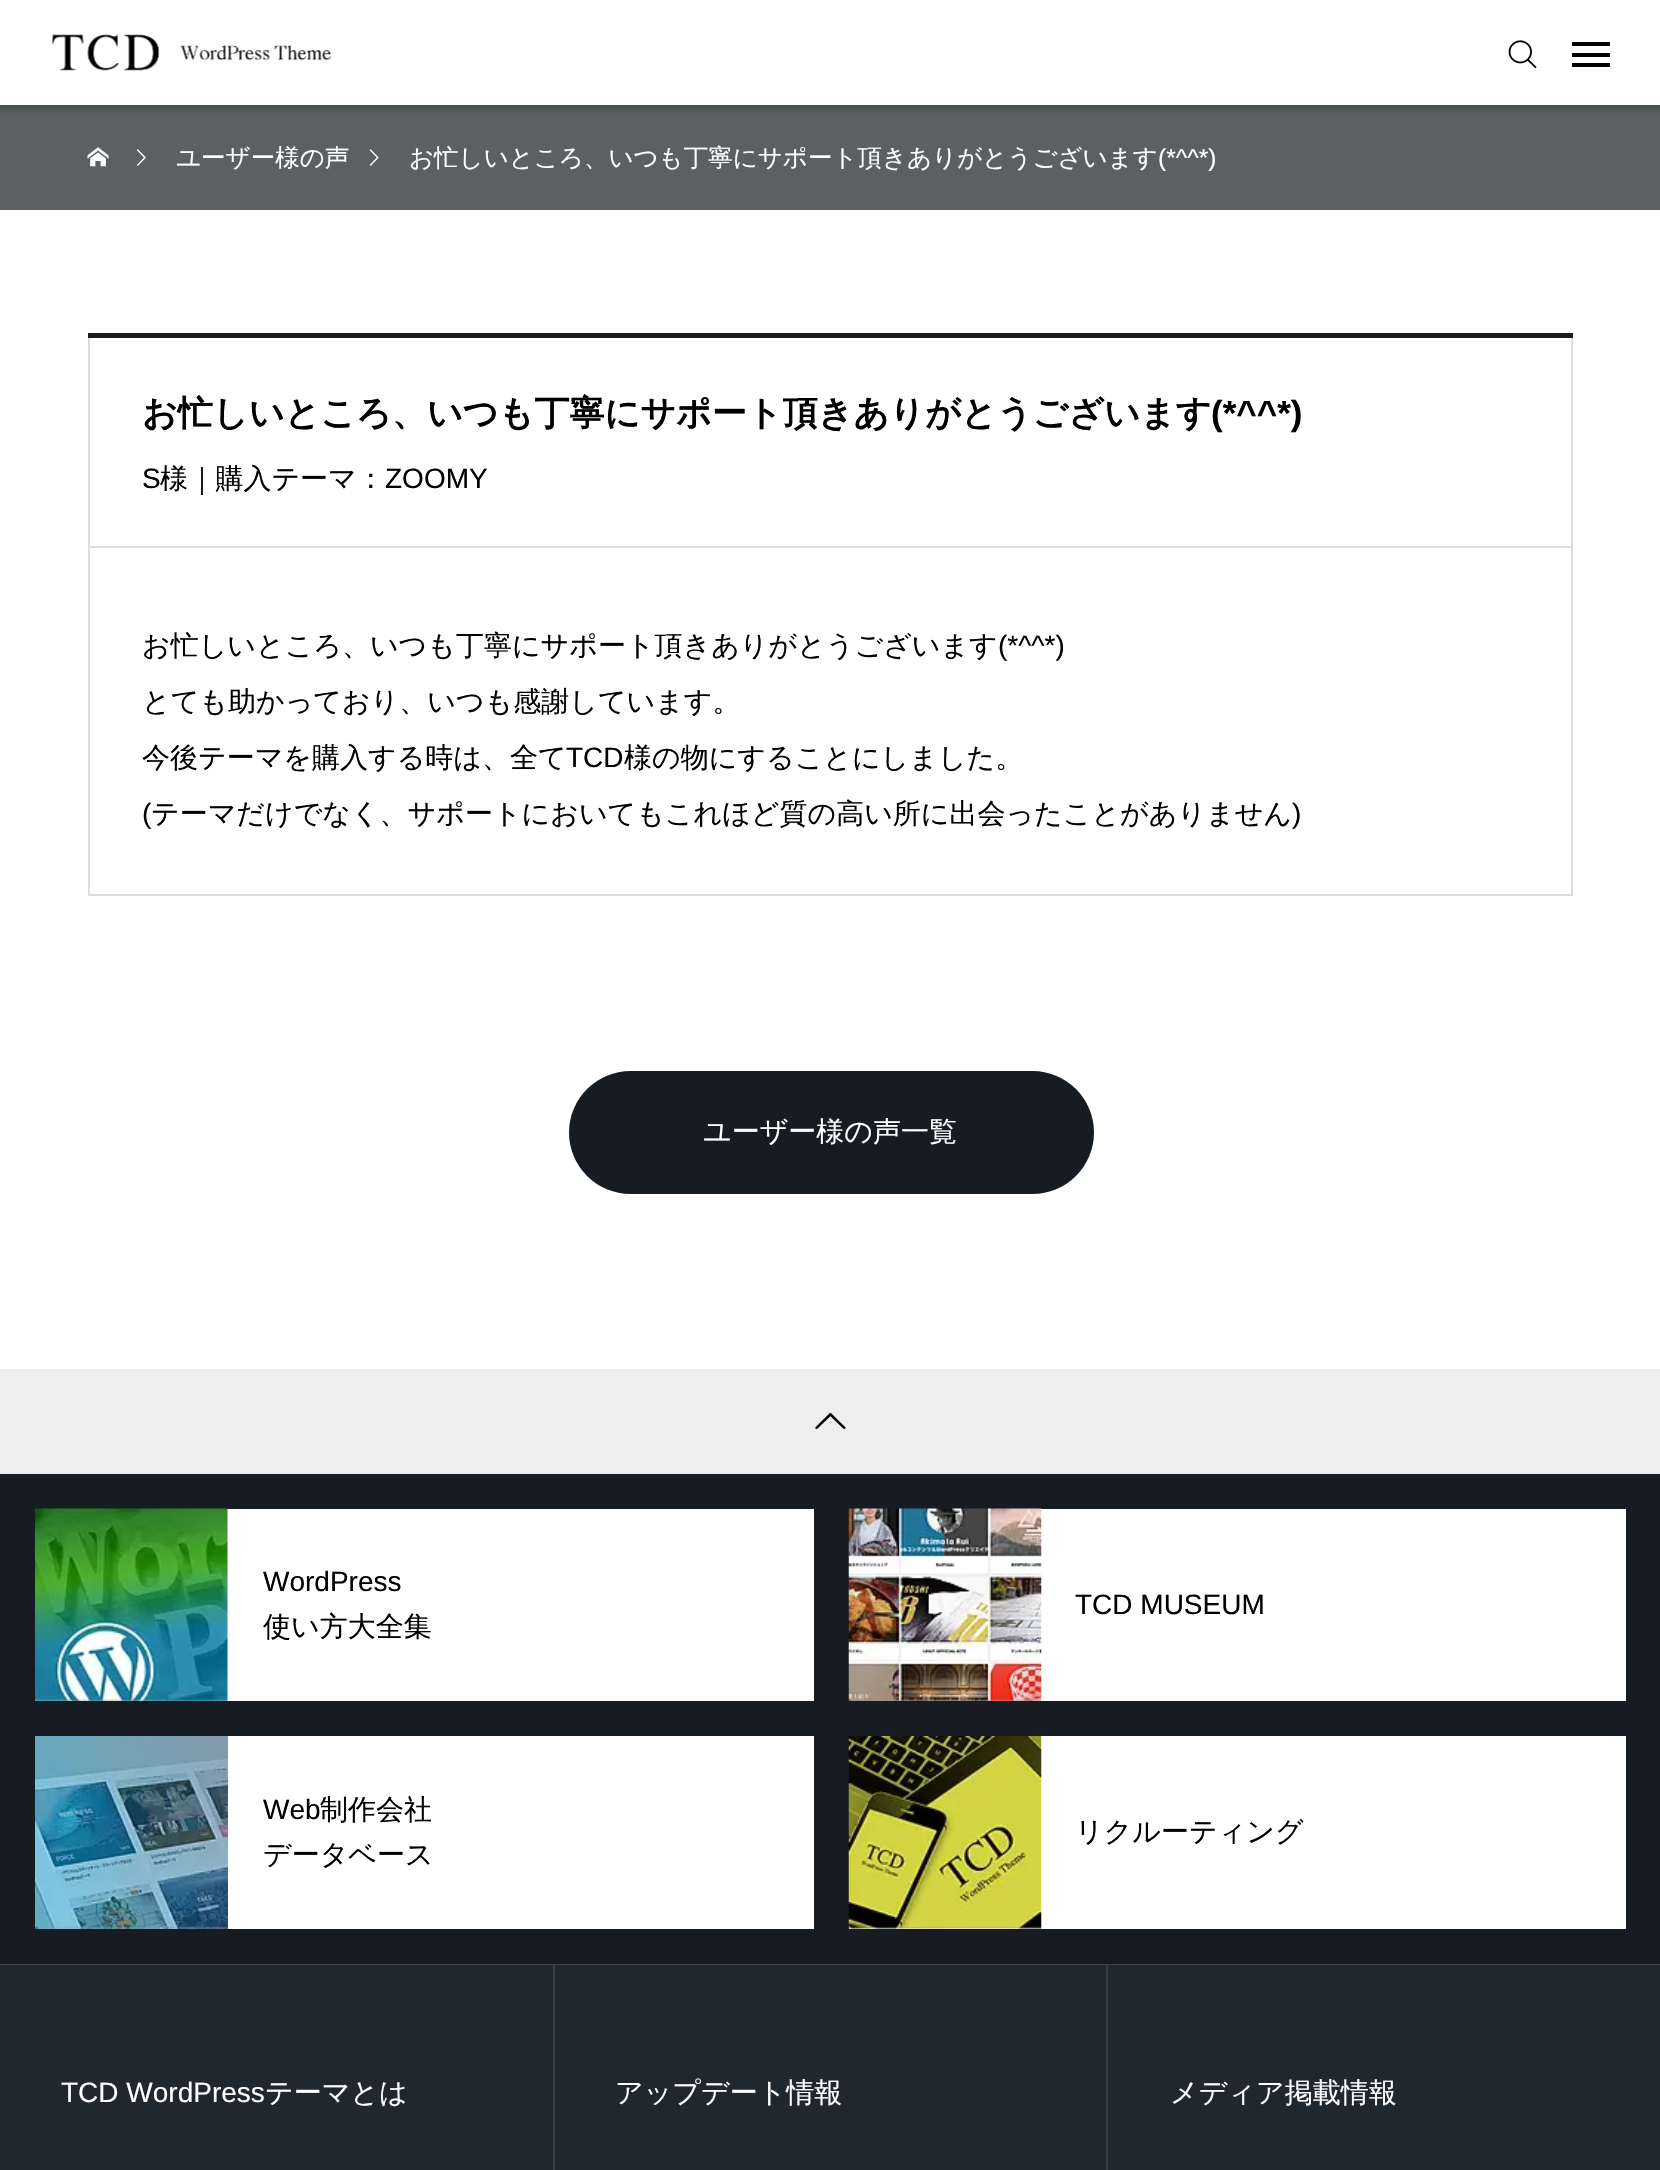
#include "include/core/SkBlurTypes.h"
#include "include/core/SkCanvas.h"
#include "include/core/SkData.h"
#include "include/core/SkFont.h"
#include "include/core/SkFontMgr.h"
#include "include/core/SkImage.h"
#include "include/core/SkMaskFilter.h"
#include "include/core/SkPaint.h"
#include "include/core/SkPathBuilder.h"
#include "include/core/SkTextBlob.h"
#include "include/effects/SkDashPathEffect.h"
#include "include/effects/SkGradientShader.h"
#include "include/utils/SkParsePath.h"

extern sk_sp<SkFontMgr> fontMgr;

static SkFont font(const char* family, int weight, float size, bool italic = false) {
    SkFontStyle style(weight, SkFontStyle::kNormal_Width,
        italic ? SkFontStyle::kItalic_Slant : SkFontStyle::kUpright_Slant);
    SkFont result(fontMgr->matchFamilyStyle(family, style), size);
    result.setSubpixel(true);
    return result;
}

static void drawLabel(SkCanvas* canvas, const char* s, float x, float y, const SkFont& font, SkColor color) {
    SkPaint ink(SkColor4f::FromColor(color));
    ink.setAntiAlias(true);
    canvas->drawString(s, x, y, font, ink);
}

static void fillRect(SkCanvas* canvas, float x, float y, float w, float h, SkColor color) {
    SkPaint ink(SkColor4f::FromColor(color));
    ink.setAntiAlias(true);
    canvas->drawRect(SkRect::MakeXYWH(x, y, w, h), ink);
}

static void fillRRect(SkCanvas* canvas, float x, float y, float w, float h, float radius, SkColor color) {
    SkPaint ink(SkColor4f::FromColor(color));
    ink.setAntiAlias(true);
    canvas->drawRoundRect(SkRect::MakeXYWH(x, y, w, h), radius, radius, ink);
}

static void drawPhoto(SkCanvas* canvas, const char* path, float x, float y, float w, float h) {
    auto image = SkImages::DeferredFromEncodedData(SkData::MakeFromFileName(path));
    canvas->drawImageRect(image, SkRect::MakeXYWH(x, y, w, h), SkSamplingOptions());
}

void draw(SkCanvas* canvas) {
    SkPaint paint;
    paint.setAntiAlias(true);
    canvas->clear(0xFFFFFFFF);
    fillRect(canvas, 0, 105, 1660, 105, 0xFF5B6063);
    paint.setColor(0x33000000);
    paint.setMaskFilter(SkMaskFilter::MakeBlur(kNormal_SkBlurStyle, 2.5f));
    canvas->drawRect(SkRect::MakeXYWH(-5, -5, 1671, 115), paint);
    paint.setMaskFilter(nullptr);
    fillRect(canvas, 0, 0, 1660, 105, 0xFFFFFFFF);
    drawPhoto(canvas, "assets/img1.png", 52, 34, 280, 37);
    drawPhoto(canvas, "assets/img2.png", 1508, 40, 29, 29);
    fillRect(canvas, 1572, 42, 38, 4, 0xFF000000);
    fillRect(canvas, 1572, 53, 38, 4, 0xFF000000);
    fillRect(canvas, 1572, 63, 38, 4, 0xFF000000);
    drawPhoto(canvas, "assets/img3.png", 87, 147, 22, 20);
    drawPhoto(canvas, "assets/img4.png", 137, 149, 9, 17);
    SkFont font1 = font("WenQuanYi Zen Hei", 500, 24.5f);
    drawLabel(canvas, "ユーザー様の声", 176, 166, font1, 0xFFFFFFFF);
    drawPhoto(canvas, "assets/img5.png", 369, 149, 10, 17);
    drawLabel(canvas, "お忙しいところ、いつも丁寧にサポート頂きありがとうございます", 409, 166, font1, 0xFFFFFFFF);
    SkFont font2 = font("Liberation Sans", 400, 24.5f);
    drawLabel(canvas, "(*^^*)", 1158, 166, font2, 0xFFFFFFFF);
    paint.setStroke(true);
    paint.setStrokeWidth(2);
    paint.setColor(0xFFDDDDDD);
    canvas->drawRect(SkRect::MakeXYWH(89, 334, 1483, 561), paint);
    fillRect(canvas, 89, 546, 1483, 2, 0xFFDDDDDD);
    fillRect(canvas, 88, 333, 1485, 5, 0xFF161C21);
    SkFont font3 = font("WenQuanYi Zen Hei", 700, 35);
    drawLabel(canvas, "お忙しいところ、いつも丁寧にサポート頂きありがとうございます", 142, 425, font3, 0xFF000000);
    SkFont font4 = font("Liberation Sans", 700, 35);
    drawLabel(canvas, "(*^^*)", 1211, 425, font4, 0xFF000000);
    SkFont font5 = font("Liberation Sans", 400, 28);
    drawLabel(canvas, "S", 142, 488, font5, 0xFF000000);
    SkFont font6 = font("WenQuanYi Zen Hei", 500, 28);
    drawLabel(canvas, "様｜購入テーマ：", 160, 488, font6, 0xFF000000);
    drawLabel(canvas, "ZOOMY", 385, 488, font5, 0xFF000000);
    drawLabel(canvas, "お忙しいところ、いつも丁寧にサポート頂きありがとうございます", 142, 655, font6, 0xFF000000);
    drawLabel(canvas, "(*^^*)", 998, 655, font5, 0xFF000000);
    drawLabel(canvas, "とても助かっており、いつも感謝しています。", 142, 711, font6, 0xFF000000);
    drawLabel(canvas, "今後テーマを購入する時は、全て", 142, 767, font6, 0xFF000000);
    drawLabel(canvas, "TCD", 566, 767, font5, 0xFF000000);
    drawLabel(canvas, "様の物にすることにしました。", 624, 767, font6, 0xFF000000);
    drawLabel(canvas, "(", 142, 823, font5, 0xFF000000);
    drawLabel(canvas, "テーマだけでなく、サポートにおいてもこれほど質の高い所に出会ったことがありません", 151, 823, font6, 0xFF000000);
    drawLabel(canvas, ")", 1292, 823, font5, 0xFF000000);
    fillRRect(canvas, 569, 1071, 525, 123, 61.5f, 0xFF161C21);
    drawLabel(canvas, "ユーザー様の声一覧", 703, 1141, font6, 0xFFFFFFFF);
    fillRect(canvas, 0, 1369, 1660, 105, 0xFFEEEEEE);
    drawPhoto(canvas, "assets/img6.png", 815, 1412, 31, 17);
    fillRect(canvas, 0, 1474, 1660, 490, 0xFF161C21);
    fillRect(canvas, 0, 1964, 1660, 1, 0xFF373E44);
    fillRect(canvas, 227, 1509, 587, 192, 0xFFFFFFFF);
    drawPhoto(canvas, "assets/img7.png", 35, 1508, 193, 193);
    drawLabel(canvas, "WordPress", 263, 1591, font5, 0xFF000000);
    drawLabel(canvas, "使い方大全集", 263, 1636, font6, 0xFF000000);
    fillRect(canvas, 1041, 1509, 585, 192, 0xFFFFFFFF);
    drawPhoto(canvas, "assets/img8.png", 848, 1508, 194, 193);
    drawLabel(canvas, "TCD MUSEUM", 1075, 1614, font5, 0xFF000000);
    fillRect(canvas, 228, 1736, 586, 193, 0xFFFFFFFF);
    drawPhoto(canvas, "assets/img9.png", 35, 1736, 193, 193);
    drawLabel(canvas, "Web", 263, 1819, font5, 0xFF000000);
    drawLabel(canvas, "制作会社", 320, 1819, font6, 0xFF000000);
    drawLabel(canvas, "データベース", 263, 1864, font6, 0xFF000000);
    fillRect(canvas, 849, 1736, 777, 193, 0xFFFFFFFF);
    drawPhoto(canvas, "assets/img10.png", 848, 1736, 194, 193);
    drawLabel(canvas, "リクルーティング", 1075, 1841, font6, 0xFF000000);
    fillRect(canvas, 0, 1965, 1660, 205, 0xFF20282F);
    drawLabel(canvas, "TCD WordPress", 61, 2102, font5, 0xFFFFFFFF);
    drawLabel(canvas, "テーマとは", 265, 2102, font6, 0xFFFFFFFF);
    fillRect(canvas, 553, 1965, 2, 205, 0xFF373E44);
    drawLabel(canvas, "アップデート情報", 615, 2102, font6, 0xFFFFFFFF);
    fillRect(canvas, 1106, 1965, 2, 205, 0xFF373E44);
    drawLabel(canvas, "メディア掲載情報", 1170, 2102, font6, 0xFFFFFFFF);
}
